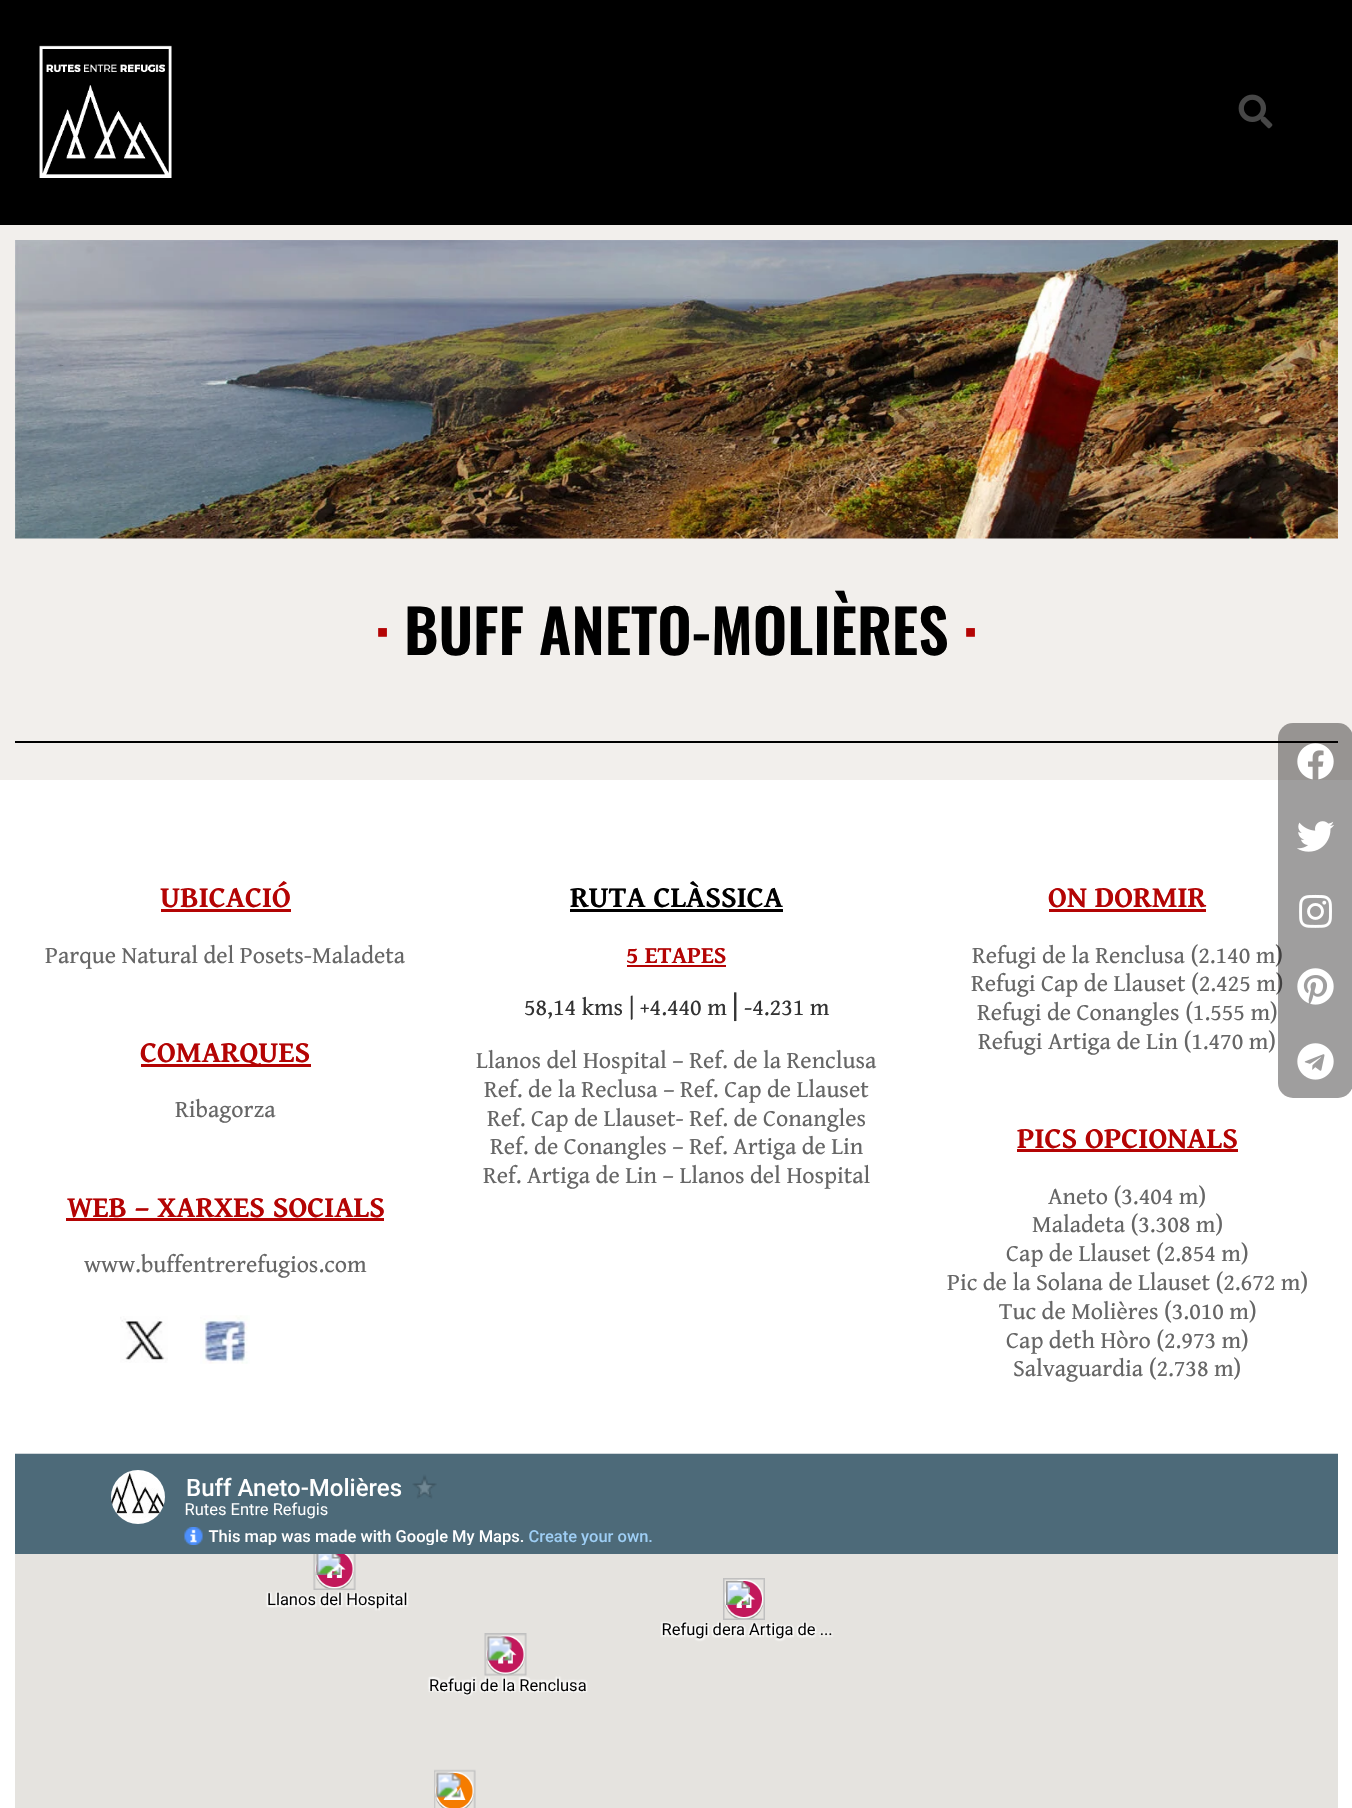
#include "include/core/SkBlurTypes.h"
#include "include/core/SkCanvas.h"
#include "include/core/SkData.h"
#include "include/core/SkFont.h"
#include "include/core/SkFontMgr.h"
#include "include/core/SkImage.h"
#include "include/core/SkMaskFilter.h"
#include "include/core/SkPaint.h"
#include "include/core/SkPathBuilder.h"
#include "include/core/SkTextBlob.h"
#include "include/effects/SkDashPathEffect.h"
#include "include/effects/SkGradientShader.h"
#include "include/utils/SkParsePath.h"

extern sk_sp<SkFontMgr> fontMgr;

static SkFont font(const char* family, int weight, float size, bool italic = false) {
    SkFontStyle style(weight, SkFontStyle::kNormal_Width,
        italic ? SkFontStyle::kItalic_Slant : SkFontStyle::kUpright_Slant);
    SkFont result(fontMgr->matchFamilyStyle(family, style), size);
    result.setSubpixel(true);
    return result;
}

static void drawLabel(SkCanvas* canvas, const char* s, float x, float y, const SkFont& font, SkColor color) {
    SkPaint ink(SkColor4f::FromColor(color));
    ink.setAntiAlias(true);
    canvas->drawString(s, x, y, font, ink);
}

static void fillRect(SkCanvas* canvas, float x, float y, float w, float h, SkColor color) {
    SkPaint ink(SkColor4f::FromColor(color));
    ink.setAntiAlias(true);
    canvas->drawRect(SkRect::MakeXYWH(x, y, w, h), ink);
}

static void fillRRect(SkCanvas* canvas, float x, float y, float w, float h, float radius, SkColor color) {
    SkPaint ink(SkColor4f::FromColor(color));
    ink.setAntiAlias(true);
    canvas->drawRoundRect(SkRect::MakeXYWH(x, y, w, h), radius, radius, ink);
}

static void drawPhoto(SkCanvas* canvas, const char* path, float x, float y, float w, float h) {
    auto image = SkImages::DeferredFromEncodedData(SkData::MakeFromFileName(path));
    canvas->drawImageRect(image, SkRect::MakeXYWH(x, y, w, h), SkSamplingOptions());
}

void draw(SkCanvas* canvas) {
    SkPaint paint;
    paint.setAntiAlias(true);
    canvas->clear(0xFFFFFFFF);
    fillRect(canvas, 0, 0, 1352, 225, 0xFF000000);
    drawPhoto(canvas, "assets/img1.png", 39, 45, 133, 133);
    drawPhoto(canvas, "assets/img2.png", 1238, 94, 35, 35);
    fillRect(canvas, 0, 225, 1352, 555, 0xFFF2EFEC);
    drawPhoto(canvas, "assets/img3.png", 15, 240, 1323, 299);
    SkFont font1 = font("Oswald", 600, 60);
    drawLabel(canvas, "·", 376, 655, font1, 0xFFB40404);
    drawLabel(canvas, "BUFF ANETO-MOLIÈRES", 404, 655, font1, 0xFF000000);
    drawLabel(canvas, "·", 964, 655, font1, 0xFFB40404);
    fillRect(canvas, 15, 741, 1323, 2, 0xFF000000);
    SkFont font2 = font("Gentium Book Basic", 700, 30);
    drawLabel(canvas, "UBICACIÓ", 160, 907, font2, 0xFFB40404);
    fillRect(canvas, 161, 909, 130, 3, 0xFFB40404);
    SkFont font3 = font("Gentium Book Basic", 400, 24);
    drawLabel(canvas, "Parque Natural del Posets-Maladeta", 45, 963, font3, 0xFF666666);
    fillRect(canvas, 141, 1064, 170, 3, 0xFFB40404);
    drawLabel(canvas, "COMARQUES", 140, 1062, font2, 0xFFB40404);
    drawLabel(canvas, "Ribagorza", 175, 1117, font3, 0xFF666666);
    drawLabel(canvas, "WEB – XARXES SOCIALS", 67, 1217, font2, 0xFFB40404);
    fillRect(canvas, 66, 1218, 318, 3, 0xFFB40404);
    drawLabel(canvas, "www.buffentrerefugios.com", 84, 1272, font3, 0xFF666666);
    drawPhoto(canvas, "assets/img4.png", 120, 1316, 48, 47);
    drawPhoto(canvas, "assets/img5.png", 200, 1315, 50, 49);
    drawLabel(canvas, "RUTA CLÀSSICA", 570, 907, font2, 0xFF000000);
    fillRect(canvas, 570, 909, 213, 3, 0xFF000000);
    SkFont font4 = font("Gentium Book Basic", 700, 24);
    drawLabel(canvas, "5 ETAPES", 626, 963, font4, 0xFFB40404);
    fillRect(canvas, 627, 965, 99, 2, 0xFFB40404);
    drawLabel(canvas, "58,14 kms | +4.440 m", 524, 1015, font3, 0xFF333333);
    SkFont font5 = font("DejaVu Sans", 400, 24);
    drawLabel(canvas, "⎜", 732, 1015, font5, 0xFF333333);
    drawLabel(canvas, "-4.231 m", 744, 1015, font3, 0xFF333333);
    drawLabel(canvas, "Llanos del Hospital – Ref. de la Renclusa", 476, 1068, font3, 0xFF666666);
    drawLabel(canvas, "Ref. de la Reclusa – Ref. Cap de Llauset", 484, 1097, font3, 0xFF666666);
    drawLabel(canvas, "Ref. Cap de Llauset- Ref. de Conangles", 487, 1126, font3, 0xFF666666);
    drawLabel(canvas, "Ref. de Conangles – Ref. Artiga de Lin", 490, 1154, font3, 0xFF666666);
    drawLabel(canvas, "Ref. Artiga de Lin – Llanos del Hospital", 483, 1183, font3, 0xFF666666);
    drawLabel(canvas, "ON DORMIR", 1048, 907, font2, 0xFFB40404);
    fillRect(canvas, 1049, 909, 157, 3, 0xFFB40404);
    drawLabel(canvas, "Refugi de la Renclusa (2.140 m)", 972, 963, font3, 0xFF666666);
    drawLabel(canvas, "Refugi Cap de Llauset (2.425 m)", 971, 991, font3, 0xFF666666);
    drawLabel(canvas, "Refugi de Conangles (1.555 m)", 977, 1020, font3, 0xFF666666);
    drawLabel(canvas, "Refugi Artiga de Lin (1.470 m)", 978, 1049, font3, 0xFF666666);
    drawLabel(canvas, "PICS OPCIONALS", 1017, 1148, font2, 0xFFB40404);
    fillRect(canvas, 1017, 1149, 221, 3, 0xFFB40404);
    drawLabel(canvas, "Aneto (3.404 m)", 1048, 1204, font3, 0xFF666666);
    drawLabel(canvas, "Maladeta (3.308 m)", 1032, 1232, font3, 0xFF666666);
    drawLabel(canvas, "Cap de Llauset (2.854 m)", 1006, 1261, font3, 0xFF666666);
    drawLabel(canvas, "Pic de la Solana de Llauset (2.672 m)", 947, 1290, font3, 0xFF666666);
    drawLabel(canvas, "Tuc de Molières (3.010 m)", 999, 1319, font3, 0xFF666666);
    drawLabel(canvas, "Cap deth Hòro (2.973 m)", 1006, 1348, font3, 0xFF666666);
    drawLabel(canvas, "Salvaguardia (2.738 m)", 1013, 1376, font3, 0xFF666666);
    drawPhoto(canvas, "assets/img6.png", 15, 1453, 1323, 355);
    fillRRect(canvas, 1278, 723, 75, 375, 15, 0x61020101);
    drawPhoto(canvas, "assets/img7.png", 1297, 743, 37, 37);
    drawPhoto(canvas, "assets/img8.png", 1297, 821, 37, 31);
    drawPhoto(canvas, "assets/img9.png", 1299, 894, 33, 34);
    drawPhoto(canvas, "assets/img10.png", 1297, 968, 37, 37);
    drawPhoto(canvas, "assets/img11.png", 1297, 1043, 37, 37);
}
